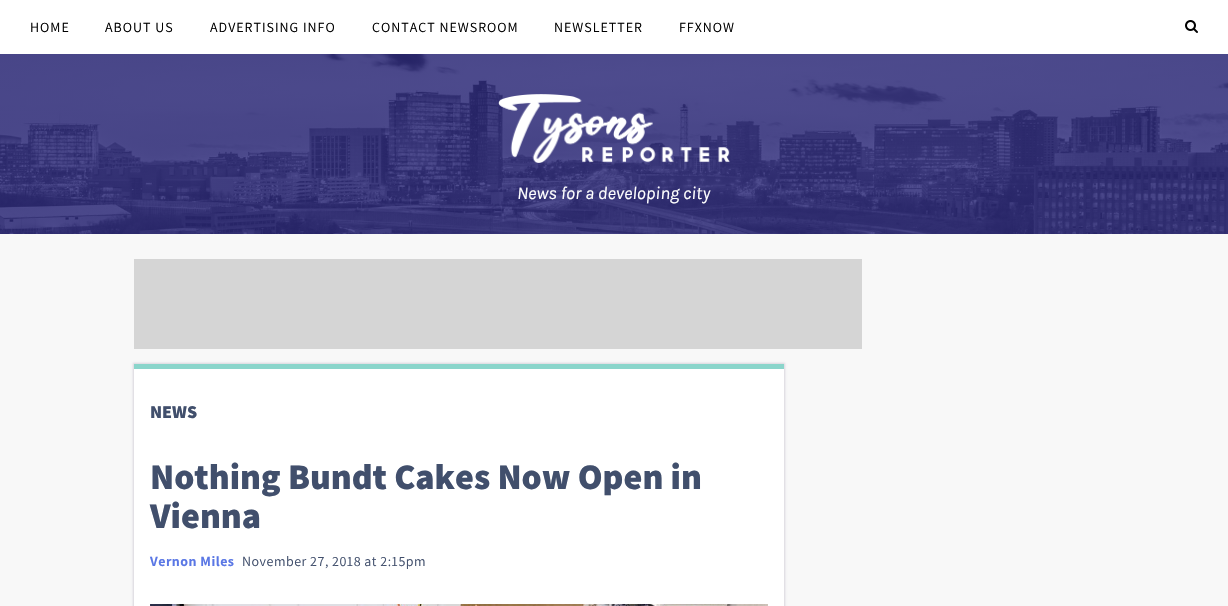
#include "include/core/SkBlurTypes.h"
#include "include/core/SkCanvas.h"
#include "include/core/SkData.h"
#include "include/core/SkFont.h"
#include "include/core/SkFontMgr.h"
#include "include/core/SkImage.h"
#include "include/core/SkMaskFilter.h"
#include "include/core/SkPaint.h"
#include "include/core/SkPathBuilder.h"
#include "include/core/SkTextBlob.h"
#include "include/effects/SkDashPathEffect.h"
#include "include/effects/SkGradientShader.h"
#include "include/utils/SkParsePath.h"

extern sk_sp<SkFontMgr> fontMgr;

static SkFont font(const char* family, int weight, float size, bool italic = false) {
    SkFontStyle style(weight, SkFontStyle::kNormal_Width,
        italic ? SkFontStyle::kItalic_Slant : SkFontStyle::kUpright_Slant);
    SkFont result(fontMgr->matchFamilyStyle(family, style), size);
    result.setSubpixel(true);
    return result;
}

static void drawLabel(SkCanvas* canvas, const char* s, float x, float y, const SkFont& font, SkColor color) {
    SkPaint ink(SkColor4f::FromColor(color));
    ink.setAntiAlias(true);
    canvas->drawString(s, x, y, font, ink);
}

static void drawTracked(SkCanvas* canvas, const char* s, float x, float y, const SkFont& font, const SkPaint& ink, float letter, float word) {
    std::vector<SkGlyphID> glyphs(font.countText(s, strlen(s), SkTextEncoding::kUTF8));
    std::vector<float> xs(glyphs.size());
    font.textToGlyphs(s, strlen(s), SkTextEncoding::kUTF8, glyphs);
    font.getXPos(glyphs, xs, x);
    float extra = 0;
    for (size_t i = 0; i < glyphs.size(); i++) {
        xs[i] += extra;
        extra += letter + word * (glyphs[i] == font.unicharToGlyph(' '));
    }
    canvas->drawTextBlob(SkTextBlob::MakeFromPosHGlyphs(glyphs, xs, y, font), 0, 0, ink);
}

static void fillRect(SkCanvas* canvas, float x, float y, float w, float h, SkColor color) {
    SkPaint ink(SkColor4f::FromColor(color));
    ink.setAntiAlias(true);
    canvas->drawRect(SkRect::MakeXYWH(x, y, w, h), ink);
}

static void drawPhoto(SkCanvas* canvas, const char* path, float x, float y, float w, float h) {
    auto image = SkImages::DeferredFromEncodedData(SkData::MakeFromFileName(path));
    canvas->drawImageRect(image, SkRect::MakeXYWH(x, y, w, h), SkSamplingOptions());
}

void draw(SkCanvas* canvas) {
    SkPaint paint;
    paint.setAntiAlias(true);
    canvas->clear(0xFFF8F8F8);
    fillRect(canvas, 0, 0, 1228, 54, 0xFFFFFFFF);
    SkFont font1 = font("Assistant", 400, 14);
    paint.setColor(0xFF000000);
    drawTracked(canvas, "HOME", 30, 32, font1, paint, 1, 0);
    drawTracked(canvas, "ABOUT US", 105, 32, font1, paint, 1, 0);
    drawTracked(canvas, "ADVERTISING INFO", 210, 32, font1, paint, 1, 0);
    drawTracked(canvas, "CONTACT NEWSROOM", 372, 32, font1, paint, 1, 0);
    drawTracked(canvas, "NEWSLETTER", 554, 32, font1, paint, 1, 0);
    drawTracked(canvas, "FFXNOW", 679, 32, font1, paint, 1, 0);
    drawPhoto(canvas, "assets/img1.png", 1185, 20, 13, 13);
    drawPhoto(canvas, "assets/img2.png", 0, 54, 1228, 180);
    drawPhoto(canvas, "assets/img3.png", 498, 94, 232, 69);
    SkFont font2 = font("Karla", 400, 18, true);
    drawLabel(canvas, "News for a developing city", 517, 199, font2, 0xFFFFFFFF);
    fillRect(canvas, 134, 259, 728, 90, 0xFFD5D5D5);
    paint.setColor(0xFFD8D5DD);
    paint.setMaskFilter(SkMaskFilter::MakeBlur(kNormal_SkBlurStyle, 1));
    canvas->drawRect(SkRect::MakeXYWH(133, 363, 652, 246), paint);
    paint.setMaskFilter(nullptr);
    fillRect(canvas, 134, 369, 650, 237, 0xFFFFFFFF);
    fillRect(canvas, 134, 364, 650, 5, 0xFF8AD5CB);
    SkFont font3 = font("Assistant", 800, 18);
    drawLabel(canvas, "NEWS", 150, 418, font3, 0xFF414F6C);
    SkFont font4 = font("Assistant", 800, 36);
    drawLabel(canvas, "Nothing Bundt Cakes Now Open in", 150, 489, font4, 0xFF414F6C);
    drawLabel(canvas, "Vienna", 150, 528, font4, 0xFF414F6C);
    SkFont font5 = font("Assistant", 700, 14);
    paint.setColor(0xFF5A77E5);
    drawTracked(canvas, "Vernon Miles", 150, 566, font5, paint, 0.5f, 0);
    paint.setColor(0xFF414F6C);
    drawTracked(canvas, "November 27, 2018 at 2:15pm", 242, 566, font1, paint, 0.5f, 0);
    drawPhoto(canvas, "assets/img4.png", 150, 604, 618, 2);
}
